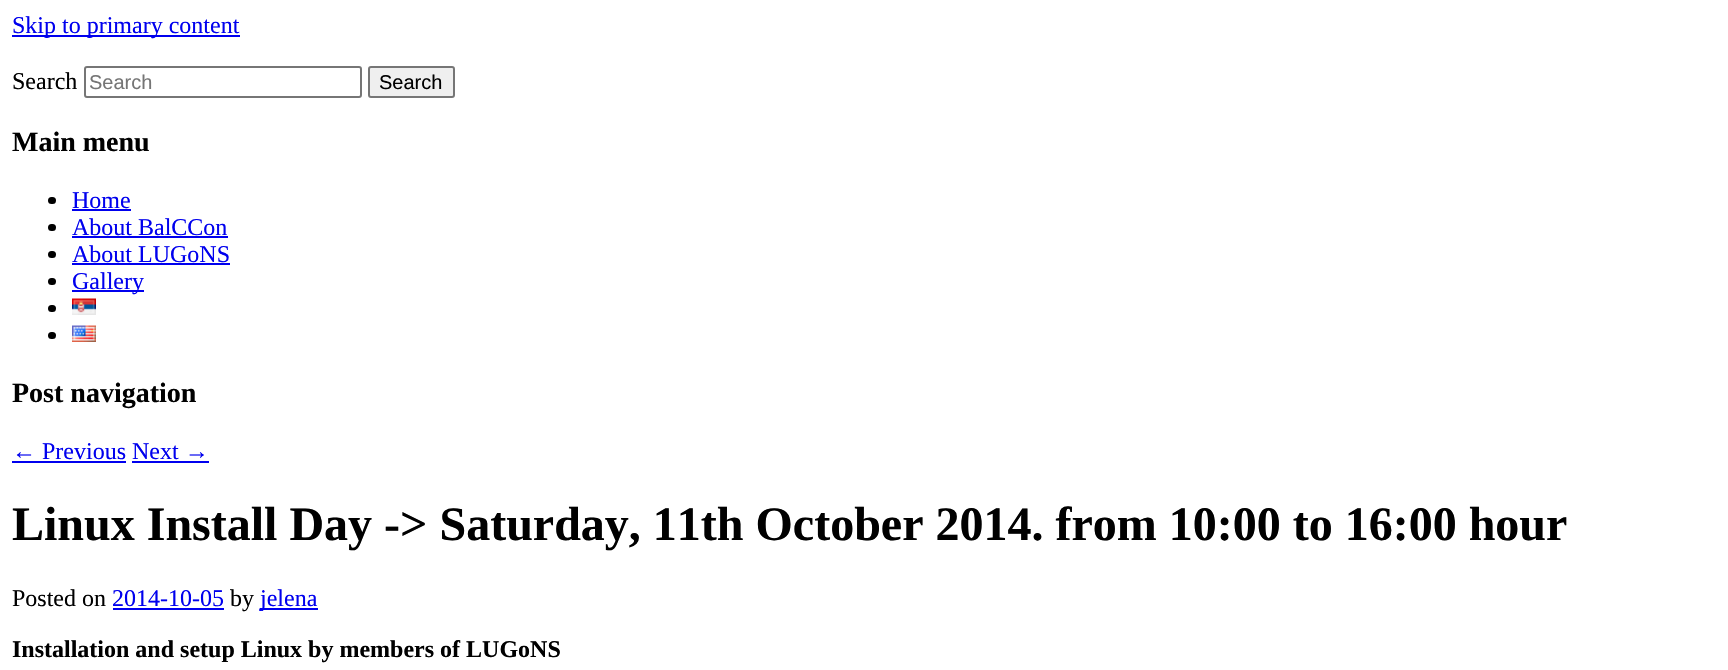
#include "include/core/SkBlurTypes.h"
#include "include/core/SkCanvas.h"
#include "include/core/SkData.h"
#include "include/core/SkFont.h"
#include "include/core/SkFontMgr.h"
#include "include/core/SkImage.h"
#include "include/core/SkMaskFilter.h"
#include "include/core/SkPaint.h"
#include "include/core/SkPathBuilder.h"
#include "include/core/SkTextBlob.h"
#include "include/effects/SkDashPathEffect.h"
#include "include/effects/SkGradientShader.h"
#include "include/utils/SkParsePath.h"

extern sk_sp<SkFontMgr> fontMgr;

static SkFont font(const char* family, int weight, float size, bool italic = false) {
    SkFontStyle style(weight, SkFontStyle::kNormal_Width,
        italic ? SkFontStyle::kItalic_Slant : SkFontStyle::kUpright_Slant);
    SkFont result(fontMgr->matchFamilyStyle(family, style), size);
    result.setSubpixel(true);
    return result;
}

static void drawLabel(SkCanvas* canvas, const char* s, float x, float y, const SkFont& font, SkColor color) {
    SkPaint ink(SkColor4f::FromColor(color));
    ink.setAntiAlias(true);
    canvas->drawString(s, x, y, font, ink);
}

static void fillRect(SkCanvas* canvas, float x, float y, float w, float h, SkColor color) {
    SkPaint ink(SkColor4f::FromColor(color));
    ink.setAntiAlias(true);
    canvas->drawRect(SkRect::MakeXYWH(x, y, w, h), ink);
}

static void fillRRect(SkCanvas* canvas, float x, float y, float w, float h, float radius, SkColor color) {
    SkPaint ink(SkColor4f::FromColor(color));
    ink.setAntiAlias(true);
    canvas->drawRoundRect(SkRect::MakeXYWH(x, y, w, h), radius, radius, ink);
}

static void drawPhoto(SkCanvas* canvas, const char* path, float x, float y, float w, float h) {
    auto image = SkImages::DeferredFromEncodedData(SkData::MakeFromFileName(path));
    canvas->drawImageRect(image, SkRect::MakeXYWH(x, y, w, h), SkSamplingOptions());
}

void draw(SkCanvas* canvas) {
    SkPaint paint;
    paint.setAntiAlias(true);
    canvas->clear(0xFFFFFFFF);
    fillRect(canvas, 12, 35, 228, 2, 0xFF0000EE);
    SkFont font1 = font("Liberation Serif", 400, 24);
    drawLabel(canvas, "Skip to primary content", 12, 33, font1, 0xFF0000EE);
    drawLabel(canvas, "Search", 12, 89, font1, 0xFF000000);
    paint.setStroke(true);
    paint.setStrokeWidth(2);
    paint.setColor(0xFF767676);
    canvas->drawRoundRect(SkRect::MakeXYWH(85, 67, 276, 30), 2, 2, paint);
    SkFont font2 = font("Liberation Sans", 400, 20);
    drawLabel(canvas, "Search", 89, 89, font2, 0xFF757575);
    paint.setStroke(false);
    paint.setColor(0xFFEFEFEF);
    canvas->drawRoundRect(SkRect::MakeXYWH(369, 67, 85, 30), 2, 2, paint);
    paint.setStroke(true);
    paint.setColor(0xFF767676);
    canvas->drawRoundRect(SkRect::MakeXYWH(369, 67, 85, 30), 2, 2, paint);
    drawLabel(canvas, "Search", 379, 89, font2, 0xFF000000);
    SkFont font3 = font("Liberation Serif", 700, 28);
    drawLabel(canvas, "Main menu", 12, 151, font3, 0xFF000000);
    fillRRect(canvas, 48, 197, 8, 7, 3.5f, 0xFF000000);
    drawLabel(canvas, "Home", 72, 208, font1, 0xFF0000EE);
    fillRect(canvas, 72, 209, 59, 2, 0xFF0000EE);
    fillRRect(canvas, 48, 224, 8, 7, 3.5f, 0xFF000000);
    drawLabel(canvas, "About BalCCon", 72, 235, font1, 0xFF0000EE);
    fillRect(canvas, 72, 236, 156, 2, 0xFF0000EE);
    fillRRect(canvas, 48, 251, 8, 7, 3.5f, 0xFF000000);
    drawLabel(canvas, "About LUGoNS", 72, 262, font1, 0xFF0000EE);
    fillRect(canvas, 72, 263, 158, 2, 0xFF0000EE);
    fillRRect(canvas, 48, 278, 8, 7, 3.5f, 0xFF000000);
    fillRect(canvas, 72, 290, 72, 2, 0xFF0000EE);
    drawLabel(canvas, "Gallery", 72, 289, font1, 0xFF0000EE);
    fillRRect(canvas, 48, 305, 8, 7, 3.5f, 0xFF000000);
    drawPhoto(canvas, "assets/img1.png", 72, 298, 24, 17);
    fillRRect(canvas, 48, 332, 8, 7, 3.5f, 0xFF000000);
    drawPhoto(canvas, "assets/img2.png", 72, 325, 24, 17);
    drawLabel(canvas, "Post navigation", 12, 402, font3, 0xFF000000);
    drawLabel(canvas, "← Previous Next →", 12, 459, font1, 0xFF0000EE);
    fillRect(canvas, 12, 461, 114, 2, 0xFF0000EE);
    fillRect(canvas, 132, 461, 77, 2, 0xFF0000EE);
    SkFont font4 = font("Liberation Serif", 700, 48);
    drawLabel(canvas, "Linux Install Day -> Saturday, 11th October 2014. from 10:00 to 16:00 hour", 12, 540, font4, 0xFF000000);
    drawLabel(canvas, "Posted on", 12, 606, font1, 0xFF000000);
    drawLabel(canvas, "2014-10-05", 112, 606, font1, 0xFF0000EE);
    fillRect(canvas, 113, 608, 111, 2, 0xFF0000EE);
    drawLabel(canvas, "by", 230, 606, font1, 0xFF000000);
    fillRect(canvas, 260, 608, 58, 2, 0xFF0000EE);
    drawLabel(canvas, "jelena", 260, 606, font1, 0xFF0000EE);
    SkFont font5 = font("Liberation Serif", 700, 24);
    drawLabel(canvas, "Installation and setup Linux by members of LUGoNS", 12, 657, font5, 0xFF000000);
}
